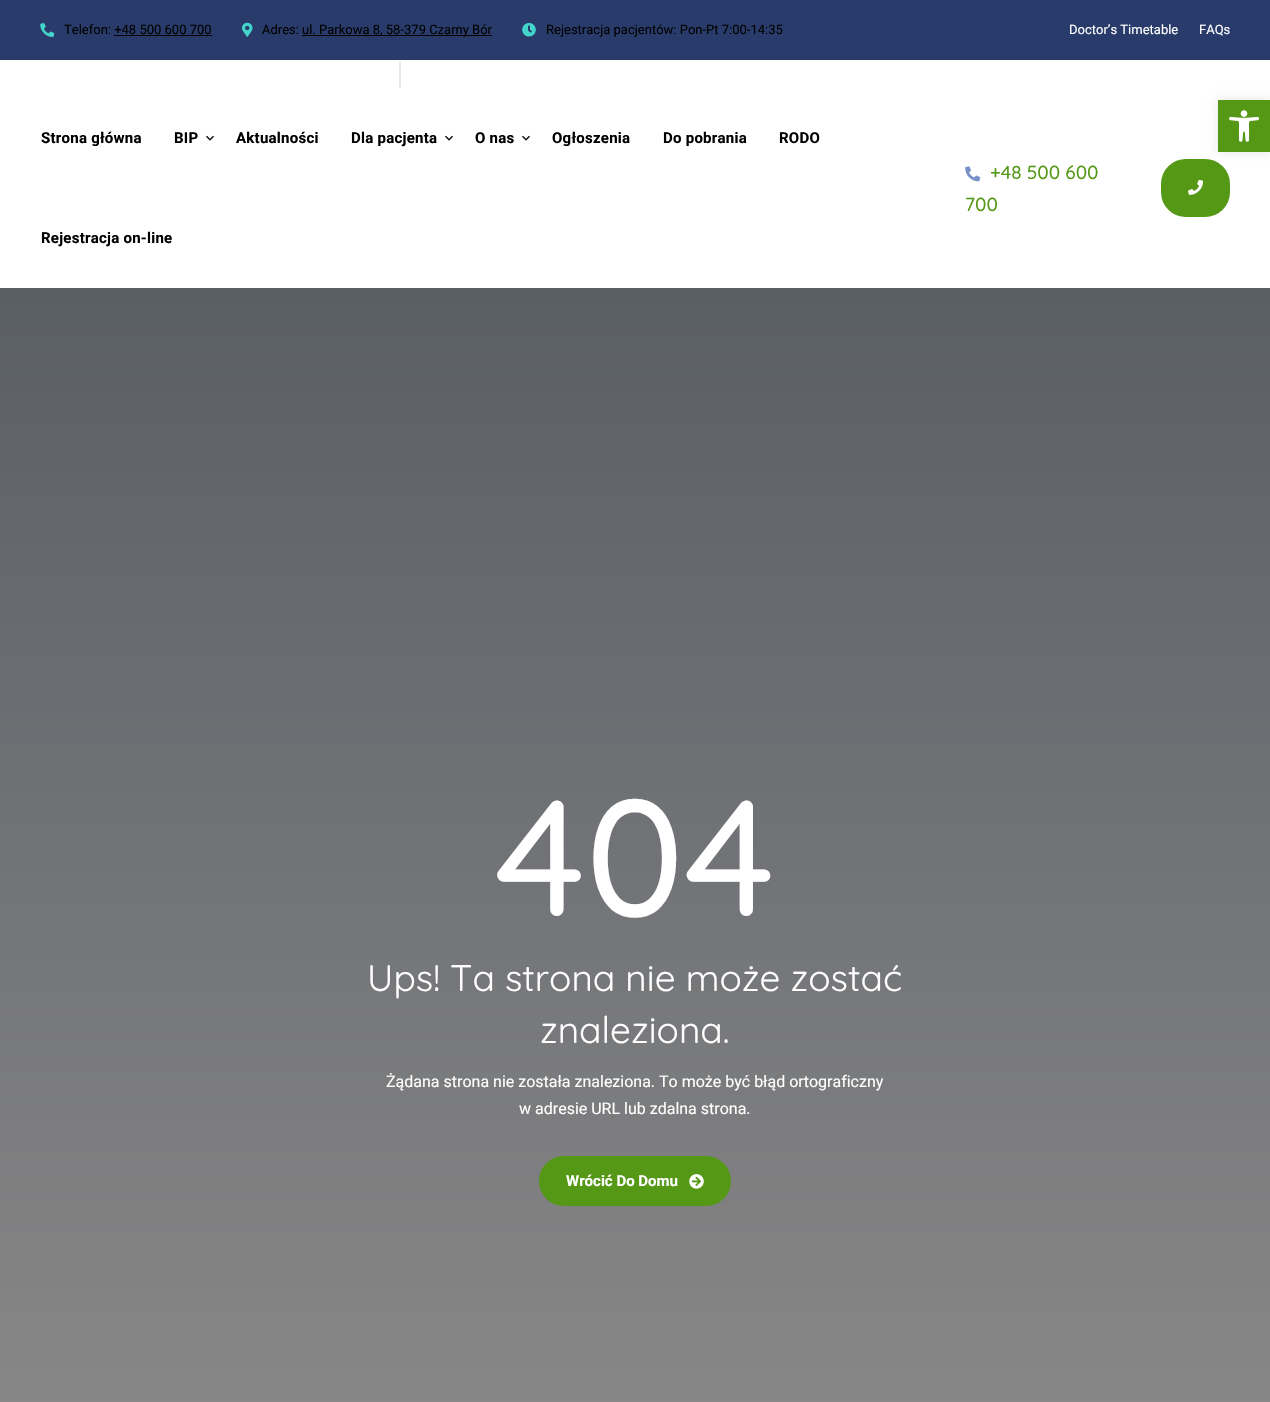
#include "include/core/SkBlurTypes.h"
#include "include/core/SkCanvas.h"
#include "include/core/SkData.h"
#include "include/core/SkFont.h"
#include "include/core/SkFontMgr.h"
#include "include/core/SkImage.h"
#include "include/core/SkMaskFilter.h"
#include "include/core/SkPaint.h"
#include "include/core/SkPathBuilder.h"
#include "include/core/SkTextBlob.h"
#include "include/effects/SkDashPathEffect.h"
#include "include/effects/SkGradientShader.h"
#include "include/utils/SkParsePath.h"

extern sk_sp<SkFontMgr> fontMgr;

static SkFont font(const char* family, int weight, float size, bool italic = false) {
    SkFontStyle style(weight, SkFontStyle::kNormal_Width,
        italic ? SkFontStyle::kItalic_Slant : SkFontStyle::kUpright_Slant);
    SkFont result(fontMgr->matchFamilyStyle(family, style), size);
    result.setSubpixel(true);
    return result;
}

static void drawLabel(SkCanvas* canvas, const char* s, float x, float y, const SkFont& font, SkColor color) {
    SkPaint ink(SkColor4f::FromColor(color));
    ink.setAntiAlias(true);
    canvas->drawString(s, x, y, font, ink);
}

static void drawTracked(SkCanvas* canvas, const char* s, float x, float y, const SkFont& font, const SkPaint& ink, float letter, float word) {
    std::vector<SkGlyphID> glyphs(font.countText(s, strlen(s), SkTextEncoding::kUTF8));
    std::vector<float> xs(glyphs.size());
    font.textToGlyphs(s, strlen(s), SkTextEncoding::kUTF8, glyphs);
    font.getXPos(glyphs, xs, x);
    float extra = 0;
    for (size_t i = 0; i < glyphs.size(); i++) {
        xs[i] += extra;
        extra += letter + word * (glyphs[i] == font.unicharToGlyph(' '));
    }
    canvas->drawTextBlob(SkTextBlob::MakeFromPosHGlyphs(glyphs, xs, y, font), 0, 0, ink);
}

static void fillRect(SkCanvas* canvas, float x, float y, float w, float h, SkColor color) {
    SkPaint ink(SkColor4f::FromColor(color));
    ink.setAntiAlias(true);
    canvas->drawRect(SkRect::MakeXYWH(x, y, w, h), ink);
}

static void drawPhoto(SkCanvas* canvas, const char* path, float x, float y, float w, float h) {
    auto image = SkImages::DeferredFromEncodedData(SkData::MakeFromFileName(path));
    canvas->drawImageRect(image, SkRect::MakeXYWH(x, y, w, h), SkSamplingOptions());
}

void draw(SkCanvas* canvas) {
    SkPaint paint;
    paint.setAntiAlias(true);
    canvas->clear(0xFFFFFFFF);
    fillRect(canvas, 0, 0, 1270, 60, 0xFF283B6A);
    drawPhoto(canvas, "assets/img1.png", 40, 23, 15, 14);
    SkFont font1 = font("Roboto", 400, 13);
    drawLabel(canvas, "Telefon: +48 500 600 700", 64, 34, font1, 0xFF000000);
    fillRect(canvas, 114, 35, 98, 1, 0xFF000000);
    drawPhoto(canvas, "assets/img2.png", 242, 22, 11, 15);
    drawLabel(canvas, "Adres:", 262, 34, font1, 0xFF000000);
    fillRect(canvas, 302, 35, 190, 1, 0xFF000000);
    drawLabel(canvas, "ul. Parkowa 8, 58-379 Czarny Bór", 302, 34, font1, 0xFF000000);
    drawPhoto(canvas, "assets/img3.png", 522, 23, 14, 14);
    drawLabel(canvas, "Rejestracja pacjentów: Pon-Pt 7:00-14:35", 546, 34, font1, 0xFF000000);
    drawLabel(canvas, "Doctor’s Timetable", 1069, 34, font1, 0xFFFFFFFF);
    drawLabel(canvas, "FAQs", 1199, 34, font1, 0xFFFFFFFF);
    fillRect(canvas, 399, 61, 2, 27, 0xFFE6E8EB);
    SkFont font2 = font("Roboto", 700, 15);
    paint.setColor(0xFF000000);
    drawTracked(canvas, "Strona główna", 41, 143, font2, paint, 0.25f, 0);
    drawTracked(canvas, "BIP", 174, 143, font2, paint, 0.25f, 0);
    drawPhoto(canvas, "assets/img4.png", 206, 135, 8, 6);
    drawTracked(canvas, "Aktualności", 236, 143, font2, paint, 0.25f, 0);
    drawTracked(canvas, "Dla pacjenta", 351, 143, font2, paint, 0.25f, 0);
    drawPhoto(canvas, "assets/img4.png", 445, 135, 8, 6);
    drawTracked(canvas, "O nas", 475, 143, font2, paint, 0.25f, 0);
    drawPhoto(canvas, "assets/img4.png", 522, 135, 8, 6);
    drawTracked(canvas, "Ogłoszenia", 552, 143, font2, paint, 0.25f, 0);
    drawTracked(canvas, "Do pobrania", 663, 143, font2, paint, 0.25f, 0);
    drawTracked(canvas, "RODO", 779, 143, font2, paint, 0.25f, 0);
    drawTracked(canvas, "Rejestracja on-line", 41, 243, font2, paint, 0.25f, 0);
    drawPhoto(canvas, "assets/img5.png", 965, 166, 16, 16);
    SkFont font3 = font("Quicksand", 500, 19);
    drawLabel(canvas, "+48 500 600", 990, 179, font3, 0xFF549816);
    drawLabel(canvas, "700", 965, 211, font3, 0xFF549816);
    paint.setColor(0xFF549816);
    canvas->drawRoundRect(SkRect::MakeXYWH(1162, 160, 67, 56), 24, 24, paint);
    paint.setStroke(true);
    paint.setStrokeWidth(2);
    canvas->drawRoundRect(SkRect::MakeXYWH(1162, 160, 67, 56), 24, 24, paint);
    drawPhoto(canvas, "assets/img6.png", 1188, 179, 15, 16);
    paint.setStroke(false);
    {
        const SkColor colors[] = {0xFF5A5E65, 0xFF898888};
        const float stops[] = {0, 0.82f};
        const SkPoint ends[] = {{635, 288}, {635, 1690}};
        paint.setShader(SkGradientShader::MakeLinear(ends, colors, stops, 2, SkTileMode::kClamp));
        paint.setAlpha(255);
    }
    canvas->drawRect(SkRect::MakeXYWH(0, 288, 1270, 1114), paint);
    SkFont font4 = font("Quicksand", 500, 165);
    drawLabel(canvas, "404", 495, 916, font4, 0xFFFFFFFF);
    SkFont font5 = font("Quicksand", 400, 37);
    drawLabel(canvas, "Ups! Ta strona nie może zostać", 367, 991, font5, 0xFFFFFFFF);
    drawLabel(canvas, "znaleziona.", 540, 1043, font5, 0xFFFFFFFF);
    SkFont font6 = font("Roboto", 400, 16);
    drawLabel(canvas, "Żądana strona nie została znaleziona. To może być błąd ortograficzny", 386, 1087, font6, 0xFFFFFFFF);
    drawLabel(canvas, "w adresie URL lub zdalna strona.", 519, 1114, font6, 0xFFFFFFFF);
    paint.setShader(nullptr);
    paint.setColor(0xFF549816);
    canvas->drawRoundRect(SkRect::MakeXYWH(540, 1157, 190, 48), 24, 24, paint);
    paint.setStroke(true);
    canvas->drawRoundRect(SkRect::MakeXYWH(540, 1157, 190, 48), 24, 24, paint);
    drawLabel(canvas, "Wrócić Do Domu", 566, 1186, font2, 0xFFFFFFFF);
    drawPhoto(canvas, "assets/img7.png", 689, 1174, 15, 15);
    paint.setStroke(false);
    paint.setColor(0x1A000000);
    paint.setMaskFilter(SkMaskFilter::MakeBlur(kNormal_SkBlurStyle, 5));
    canvas->drawRect(SkRect::MakeXYWH(1218, 100, 52, 52), paint);
    paint.setMaskFilter(nullptr);
    fillRect(canvas, 1218, 100, 52, 52, 0xFF549816);
    drawPhoto(canvas, "assets/img8.png", 1229, 110, 30, 32);
}
